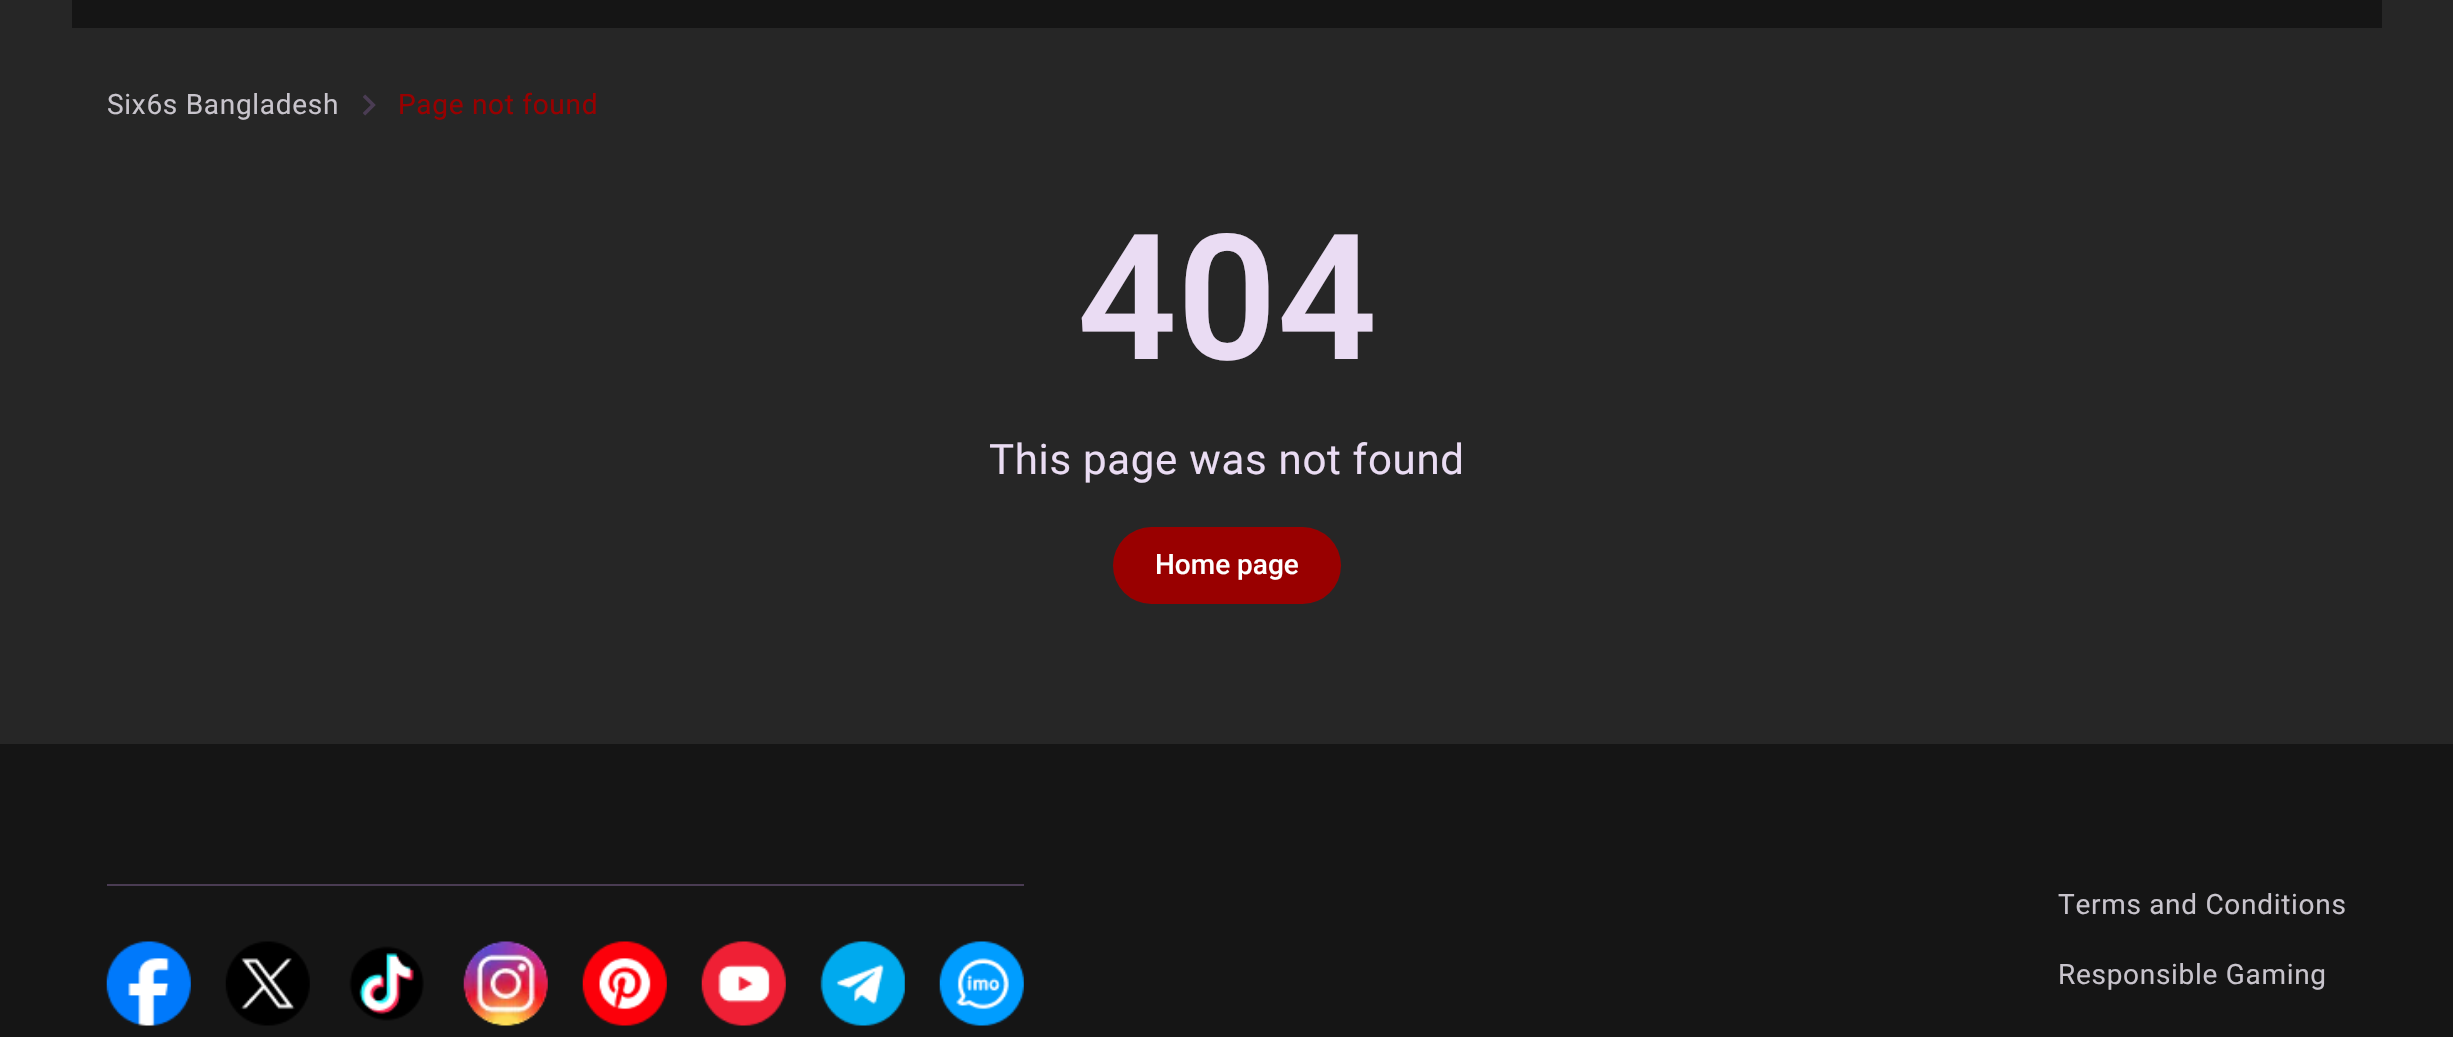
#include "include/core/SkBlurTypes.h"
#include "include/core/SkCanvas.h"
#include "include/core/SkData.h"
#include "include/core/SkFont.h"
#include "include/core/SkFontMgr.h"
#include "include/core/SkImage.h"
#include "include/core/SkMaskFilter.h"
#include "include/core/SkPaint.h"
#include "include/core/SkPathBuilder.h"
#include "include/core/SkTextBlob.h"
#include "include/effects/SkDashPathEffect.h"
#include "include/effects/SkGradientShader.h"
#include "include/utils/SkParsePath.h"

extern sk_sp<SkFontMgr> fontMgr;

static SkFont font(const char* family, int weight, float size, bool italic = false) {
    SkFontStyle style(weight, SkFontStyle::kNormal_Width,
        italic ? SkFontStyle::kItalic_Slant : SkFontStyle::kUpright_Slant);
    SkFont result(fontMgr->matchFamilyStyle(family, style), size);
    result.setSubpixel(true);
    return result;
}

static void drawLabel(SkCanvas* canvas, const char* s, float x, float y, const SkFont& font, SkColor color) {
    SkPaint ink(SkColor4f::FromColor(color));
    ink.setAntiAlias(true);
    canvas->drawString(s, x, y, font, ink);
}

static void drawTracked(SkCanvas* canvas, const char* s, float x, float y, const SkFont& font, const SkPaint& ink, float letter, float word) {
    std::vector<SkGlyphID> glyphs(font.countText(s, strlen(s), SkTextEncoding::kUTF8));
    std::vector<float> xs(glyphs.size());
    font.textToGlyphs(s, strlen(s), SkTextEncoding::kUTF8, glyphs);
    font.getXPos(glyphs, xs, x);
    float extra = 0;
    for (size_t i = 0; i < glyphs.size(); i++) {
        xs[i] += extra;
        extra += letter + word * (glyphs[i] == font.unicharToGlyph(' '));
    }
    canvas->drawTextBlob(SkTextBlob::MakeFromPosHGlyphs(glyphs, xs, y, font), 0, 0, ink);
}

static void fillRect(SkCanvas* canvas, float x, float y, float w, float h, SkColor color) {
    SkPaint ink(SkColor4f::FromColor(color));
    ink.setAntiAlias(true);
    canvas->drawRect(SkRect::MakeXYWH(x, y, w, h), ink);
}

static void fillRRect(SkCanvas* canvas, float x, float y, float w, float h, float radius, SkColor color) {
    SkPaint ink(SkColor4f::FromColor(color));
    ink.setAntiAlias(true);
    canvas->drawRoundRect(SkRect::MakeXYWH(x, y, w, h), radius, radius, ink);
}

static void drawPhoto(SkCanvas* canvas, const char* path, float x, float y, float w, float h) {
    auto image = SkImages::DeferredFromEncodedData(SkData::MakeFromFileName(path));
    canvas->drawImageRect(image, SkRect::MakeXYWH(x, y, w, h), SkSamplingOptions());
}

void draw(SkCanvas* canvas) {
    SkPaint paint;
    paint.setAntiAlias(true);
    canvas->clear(0xFF262626);
    fillRect(canvas, 72, 0, 2310, 28, 0xFF151515);
    SkFont font1 = font("Roboto", 400, 28);
    paint.setColor(0xFFC8C4CC);
    drawTracked(canvas, "Six6s Bangladesh", 107, 114, font1, paint, 0.7f, 0);
    drawPhoto(canvas, "assets/img1.png", 363, 94, 13, 22);
    paint.setColor(0xFF990000);
    drawTracked(canvas, "Page not found", 398, 114, font1, paint, 0.7f, 0);
    SkFont font2 = font("Roboto", 600, 175);
    drawLabel(canvas, "404", 1077, 359, font2, 0xFFEADCF3);
    SkFont font3 = font("Roboto", 400, 42);
    paint.setColor(0xFFEADCF3);
    drawTracked(canvas, "This page was not found", 989, 474, font3, paint, 0.7f, 0);
    fillRRect(canvas, 1113, 527, 228, 77, 38.5f, 0xFF990000);
    SkFont font4 = font("Roboto", 500, 28);
    drawLabel(canvas, "Home page", 1155, 574, font4, 0xFFFFFFFF);
    fillRect(canvas, 0, 744, 2453, 293, 0xFF151515);
    fillRect(canvas, 107, 884, 917, 2, 0xFF4A3C53);
    drawPhoto(canvas, "assets/img2.png", 106, 941, 85, 85);
    drawPhoto(canvas, "assets/img3.png", 225, 941, 85, 85);
    drawPhoto(canvas, "assets/img4.png", 349, 946, 75, 75);
    drawPhoto(canvas, "assets/img5.png", 463, 941, 85, 85);
    drawPhoto(canvas, "assets/img6.png", 582, 941, 85, 85);
    drawPhoto(canvas, "assets/img7.png", 701, 941, 85, 85);
    drawPhoto(canvas, "assets/img8.png", 820, 941, 85, 85);
    drawPhoto(canvas, "assets/img9.png", 939, 941, 85, 85);
    paint.setColor(0xFFC8C4CC);
    drawTracked(canvas, "Terms and Conditions", 2058, 914, font1, paint, 0.7f, 0);
    drawTracked(canvas, "Responsible Gaming", 2058, 984, font1, paint, 0.7f, 0);
}
